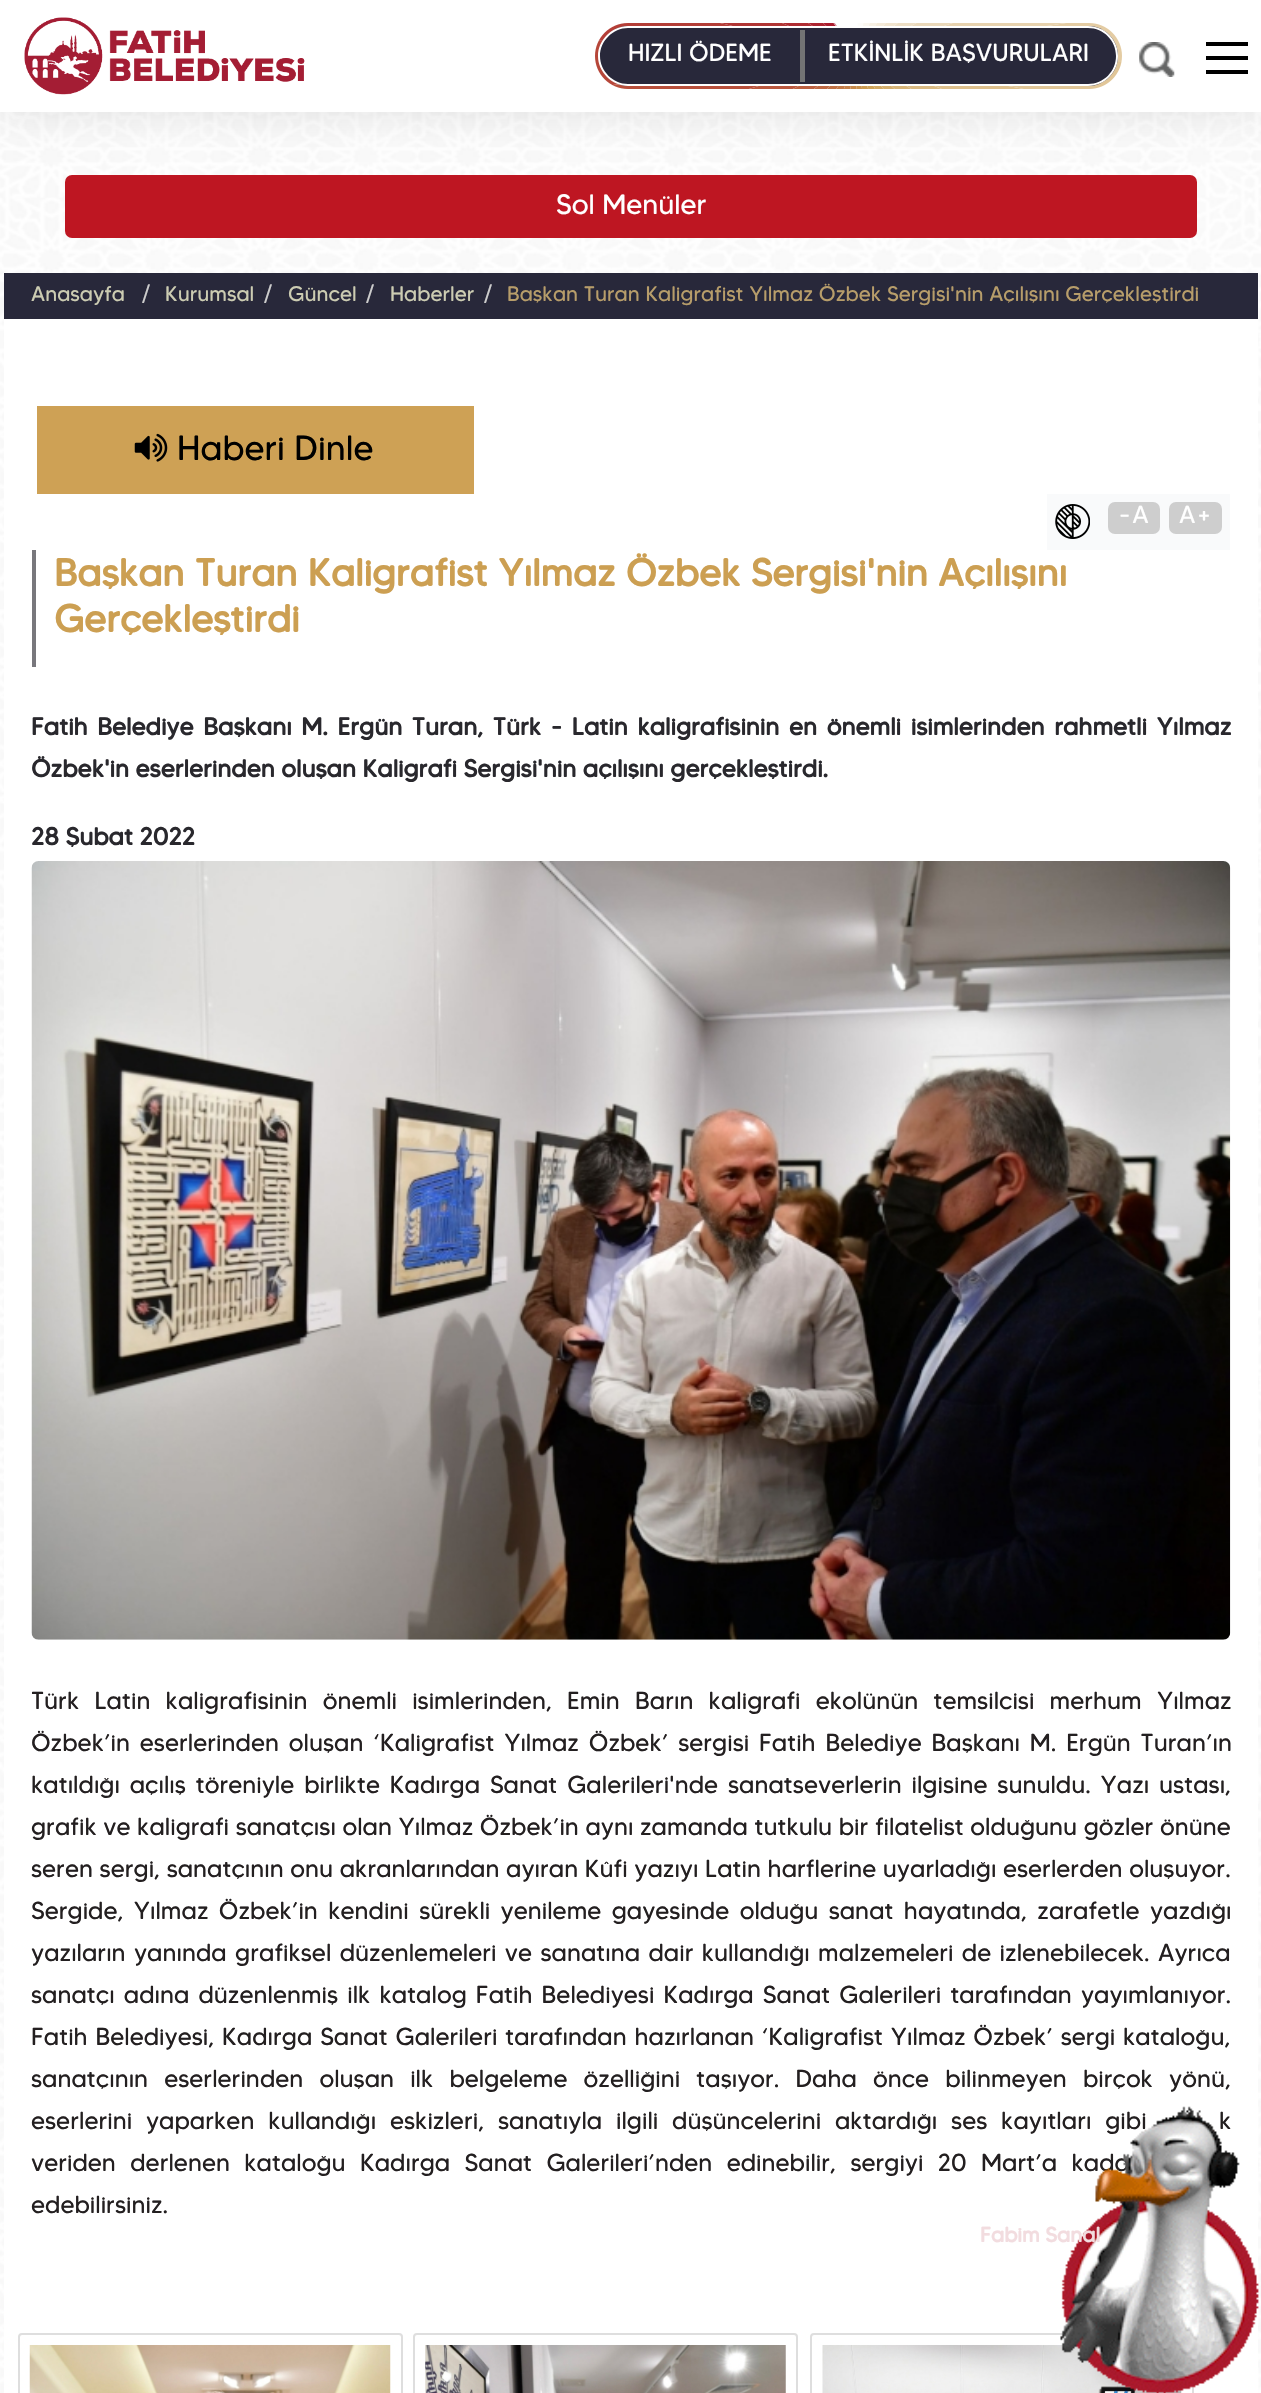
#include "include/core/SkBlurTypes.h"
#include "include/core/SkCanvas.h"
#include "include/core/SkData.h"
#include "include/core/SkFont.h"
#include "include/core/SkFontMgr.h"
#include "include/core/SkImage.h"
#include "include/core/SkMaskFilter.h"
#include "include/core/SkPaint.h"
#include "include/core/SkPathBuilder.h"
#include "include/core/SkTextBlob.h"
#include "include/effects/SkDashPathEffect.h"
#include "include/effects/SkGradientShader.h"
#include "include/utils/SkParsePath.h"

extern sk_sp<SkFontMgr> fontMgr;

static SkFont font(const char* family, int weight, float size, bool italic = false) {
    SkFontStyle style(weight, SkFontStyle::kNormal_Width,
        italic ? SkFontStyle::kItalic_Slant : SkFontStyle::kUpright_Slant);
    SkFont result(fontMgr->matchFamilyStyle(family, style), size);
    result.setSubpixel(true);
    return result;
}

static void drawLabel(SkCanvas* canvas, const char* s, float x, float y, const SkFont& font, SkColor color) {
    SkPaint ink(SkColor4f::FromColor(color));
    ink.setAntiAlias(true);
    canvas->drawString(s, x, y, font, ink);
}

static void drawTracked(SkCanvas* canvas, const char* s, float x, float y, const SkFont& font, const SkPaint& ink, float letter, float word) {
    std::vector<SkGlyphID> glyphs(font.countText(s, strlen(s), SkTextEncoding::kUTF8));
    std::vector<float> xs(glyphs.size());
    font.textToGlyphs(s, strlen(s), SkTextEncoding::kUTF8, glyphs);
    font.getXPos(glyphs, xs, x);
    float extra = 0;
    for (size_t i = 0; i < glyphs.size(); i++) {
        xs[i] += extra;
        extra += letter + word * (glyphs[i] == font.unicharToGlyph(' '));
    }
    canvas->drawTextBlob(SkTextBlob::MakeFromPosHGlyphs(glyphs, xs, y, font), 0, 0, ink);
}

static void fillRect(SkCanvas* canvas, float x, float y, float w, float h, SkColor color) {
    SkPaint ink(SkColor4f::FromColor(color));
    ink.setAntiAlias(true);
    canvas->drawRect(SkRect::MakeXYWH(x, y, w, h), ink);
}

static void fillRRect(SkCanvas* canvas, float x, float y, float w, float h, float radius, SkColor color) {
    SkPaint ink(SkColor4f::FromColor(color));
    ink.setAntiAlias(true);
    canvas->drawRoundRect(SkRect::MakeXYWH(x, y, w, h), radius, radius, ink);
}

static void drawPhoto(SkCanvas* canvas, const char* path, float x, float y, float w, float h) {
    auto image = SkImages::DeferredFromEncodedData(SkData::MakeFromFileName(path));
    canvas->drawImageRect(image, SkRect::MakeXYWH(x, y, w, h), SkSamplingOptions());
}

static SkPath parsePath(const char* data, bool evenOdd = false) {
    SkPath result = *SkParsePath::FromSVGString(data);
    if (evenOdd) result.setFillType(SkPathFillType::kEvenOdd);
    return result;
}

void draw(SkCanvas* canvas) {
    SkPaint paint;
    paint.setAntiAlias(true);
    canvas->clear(0xFFFFFFFF);
    drawPhoto(canvas, "assets/img1.png", 0, 112, 1261, 2281);
    fillRRect(canvas, 65, 175, 1132, 63, 7, 0xFFBE1622);
    paint.setColor(0x1C000000);
    paint.setMaskFilter(SkMaskFilter::MakeBlur(kNormal_SkBlurStyle, 21));
    canvas->drawRect(SkRect::MakeXYWH(0, 0, 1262, 112), paint);
    paint.setMaskFilter(nullptr);
    fillRect(canvas, 0, 0, 1261, 112, 0xFFFFFFFF);
    drawPhoto(canvas, "assets/img2.png", 24, 17, 281, 78);
    drawPhoto(canvas, "assets/img3.png", 595, 23, 527, 66);
    paint.setColor(0xFF28283A);
    canvas->drawPath(parsePath("M629 26H800V86H629C612.5 86 599 72.5 599 56C599 39.5 612.5 26 629 26Z"), paint);
    paint.setColor(0xFFFFFFFF);
    canvas->drawPath(parsePath("M628 26H800V86H628C612 86 598 72 598 56C598 40 612 26 628 26ZM628 28H800V84H628C613 84 600 71 600 56C600 41 613 28 628 28Z", true), paint);
    SkFont font1 = font("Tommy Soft", 400, 24.5f);
    drawLabel(canvas, "HIZLI ÖDEME", 628, 61, font1, 0xFFFFFFFF);
    paint.setColor(0xFF28283A);
    canvas->drawPath(parsePath("M800 26H1088C1104.5 26 1118 39.5 1118 56C1118 72.5 1104.5 86 1088 86H800Z"), paint);
    paint.setColor(0xFFFFFFFF);
    canvas->drawPath(parsePath("M800 26H1088C1105 26 1118 40 1118 56C1118 72 1105 86 1088 86H800ZM800 28H1088C1104 28 1116 41 1116 56C1116 71 1104 84 1088 84H800Z", true), paint);
    fillRect(canvas, 800, 30, 5, 52, 0xFF747474);
    drawLabel(canvas, "ETKİNLİK BAŞVURULARI", 828, 61, font1, 0xFFFFFFFF);
    drawPhoto(canvas, "assets/img4.png", 1139, 42, 36, 35);
    fillRect(canvas, 1206, 42, 42, 4, 0xFF000000);
    fillRect(canvas, 1206, 70, 42, 4, 0xFF000000);
    fillRect(canvas, 1206, 56, 42, 4, 0xFF000000);
    SkFont font2 = font("Tommy Soft", 400, 28);
    drawLabel(canvas, "Sol Menüler", 556, 214, font2, 0xFFFFFFFF);
    fillRect(canvas, 4, 273, 1254, 46, 0xFF28283A);
    SkFont font3 = font("Tommy Soft", 400, 21);
    drawLabel(canvas, "Anasayfa", 31, 301, font3, 0xFFCCCCB2);
    drawLabel(canvas, "/", 141, 301, font3, 0xFFCCCCCC);
    drawLabel(canvas, "Kurumsal", 165, 301, font3, 0xFFCCCCB2);
    drawLabel(canvas, "/", 263, 301, font3, 0xFFCCCCCC);
    drawLabel(canvas, "Güncel", 288, 301, font3, 0xFFCCCCB2);
    drawLabel(canvas, "/", 365, 301, font3, 0xFFCCCCCC);
    drawLabel(canvas, "Haberler", 390, 301, font3, 0xFFCCCCB2);
    drawLabel(canvas, "/", 483, 301, font3, 0xFFCCCCCC);
    drawLabel(canvas, "Başkan Turan Kaligrafist Yılmaz Özbek Sergisi'nin Açılışını Gerçekleştirdi", 507, 301, font3, 0xFFB79D6A);
    fillRect(canvas, 4, 319, 1254, 2074, 0xFFFFFFFF);
    fillRect(canvas, 37, 406, 437, 88, 0xFFCEA155);
    drawPhoto(canvas, "assets/img5.png", 134, 433, 34, 29);
    SkFont font4 = font("Tommy Soft", 400, 35);
    drawLabel(canvas, "Haberi Dinle", 177, 460, font4, 0xFF000000);
    fillRect(canvas, 1047, 494, 183, 56, 0xFFF9FAFB);
    drawPhoto(canvas, "assets/img6.png", 1055, 504, 35, 35);
    fillRRect(canvas, 1108, 502, 52, 32, 7, 0xFFCECECE);
    drawTracked(canvas, "-A", 1119, 523, font1, paint, 2, 0);
    fillRRect(canvas, 1169, 502, 53, 32, 7, 0xFFCECECE);
    drawTracked(canvas, "A+", 1179, 523, font1, paint, 2, 0);
    fillRect(canvas, 32, 550, 4, 117, 0xFF78777C);
    SkFont font5 = font("Tommy Soft", 700, 38.5f);
    drawLabel(canvas, "Başkan Turan Kaligrafist Yılmaz Özbek Sergisi'nin Açılışını", 54, 586, font5, 0xFFCC9F52);
    drawLabel(canvas, "Gerçekleştirdi", 54, 632, font5, 0xFFCC9F52);
    SkFont font6 = font("Tommy Soft", 700, 24.5f);
    paint.setColor(0xFF29282D);
    drawTracked(canvas, "Fatih Belediye Başkanı M. Ergün Turan, Türk - Latin kaligrafisinin en önemli isimlerinden rahmetli Yılmaz", 31, 735, font6, paint, 0, 3.1f);
    drawLabel(canvas, "Özbek'in eserlerinden oluşan Kaligrafi Sergisi'nin açılışını gerçekleştirdi.", 31, 777, font6, 0xFF29282D);
    drawLabel(canvas, "28 Şubat 2022", 31, 845, font6, 0xFF29282D);
    drawPhoto(canvas, "assets/img7.png", 31, 861, 1200, 779);
    paint.setColor(0xFF231F20);
    drawTracked(canvas, "Türk Latin kaligrafisinin önemli isimlerinden, Emin Barın kaligrafi ekolünün temsilcisi merhum Yılmaz", 31, 1709, font1, paint, 0, 8.6f);
    drawTracked(canvas, "Özbek’in eserlerinden oluşan ‘Kaligrafist Yılmaz Özbek’ sergisi Fatih Belediye Başkanı M. Ergün Turan’ın", 31, 1751, font1, paint, 0, 3.25f);
    drawTracked(canvas, "katıldığı açılış töreniyle birlikte Kadırga Sanat Galerileri'nde sanatseverlerin ilgisine sunuldu. Yazı ustası,", 31, 1793, font1, paint, 0, 3.25f);
    drawLabel(canvas, "grafik ve kaligrafi sanatçısı olan Yılmaz Özbek’in aynı zamanda tutkulu bir filatelist olduğunu gözler önüne", 31, 1835, font1, 0xFF231F20);
    drawLabel(canvas, "seren sergi, sanatçının onu akranlarından ayıran Kûfi yazıyı Latin harflerine uyarladığı eserlerden oluşuyor.", 31, 1877, font1, 0xFF231F20);
    drawTracked(canvas, "Sergide, Yılmaz Özbek’in kendini sürekli yenileme gayesinde olduğu sanat hayatında, zarafetle yazdığı", 31, 1919, font1, paint, 0, 3.75f);
    drawTracked(canvas, "yazıların yanında grafiksel düzenlemeleri ve sanatına dair kullandığı malzemeleri de izlenebilecek. Ayrıca", 31, 1961, font1, paint, 0, 1.75f);
    drawTracked(canvas, "sanatçı adına düzenlenmiş ilk katalog Fatih Belediyesi Kadırga Sanat Galerileri tarafından yayımlanıyor.", 31, 2003, font1, paint, 0, 2.5f);
    drawTracked(canvas, "Fatih Belediyesi, Kadırga Sanat Galerileri tarafından hazırlanan ‘Kaligrafist Yılmaz Özbek’ sergi kataloğu,", 31, 2045, font1, paint, 0, 1.25f);
    drawTracked(canvas, "sanatçının eserlerinden oluşan ilk belgeleme özelliğini taşıyor. Daha önce bilinmeyen birçok yönü,", 31, 2087, font1, paint, 0, 9.5f);
    drawTracked(canvas, "eserlerini yaparken kullandığı eskizleri, sanatıyla ilgili düşüncelerini aktardığı ses kayıtları gibi", 31, 2129, font1, paint, 0, 7.25f);
    drawTracked(canvas, "k", 1219, 2129, font1, paint, 0, 7.25f);
    drawTracked(canvas, "veriden derlenen kataloğu Kadırga Sanat Galerileri’nden edinebilir, sergiyi 20 Mart’a kada", 31, 2171, font1, paint, 0, 7.75f);
    drawLabel(canvas, "edebilirsiniz.", 31, 2213, font1, 0xFF231F20);
    paint.setStroke(true);
    paint.setStrokeWidth(2);
    paint.setColor(0xFFDEDEDE);
    canvas->drawRoundRect(SkRect::MakeXYWH(19, 2334, 383, 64), 3, 3, paint);
    drawPhoto(canvas, "assets/img8.png", 29, 2345, 362, 48);
    canvas->drawRoundRect(SkRect::MakeXYWH(414, 2334, 383, 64), 3, 3, paint);
    drawPhoto(canvas, "assets/img9.png", 425, 2345, 361, 48);
    canvas->drawRoundRect(SkRect::MakeXYWH(811, 2334, 382, 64), 3, 3, paint);
    drawPhoto(canvas, "assets/img10.png", 822, 2345, 360, 48);
    drawPhoto(canvas, "assets/img11.png", 1060, 2106, 199, 287);
    SkFont font7 = font("Tommy Soft", 700, 21);
    drawLabel(canvas, "Fabim Sanal", 980, 2242, font7, 0xFFF2DCDF);
}
